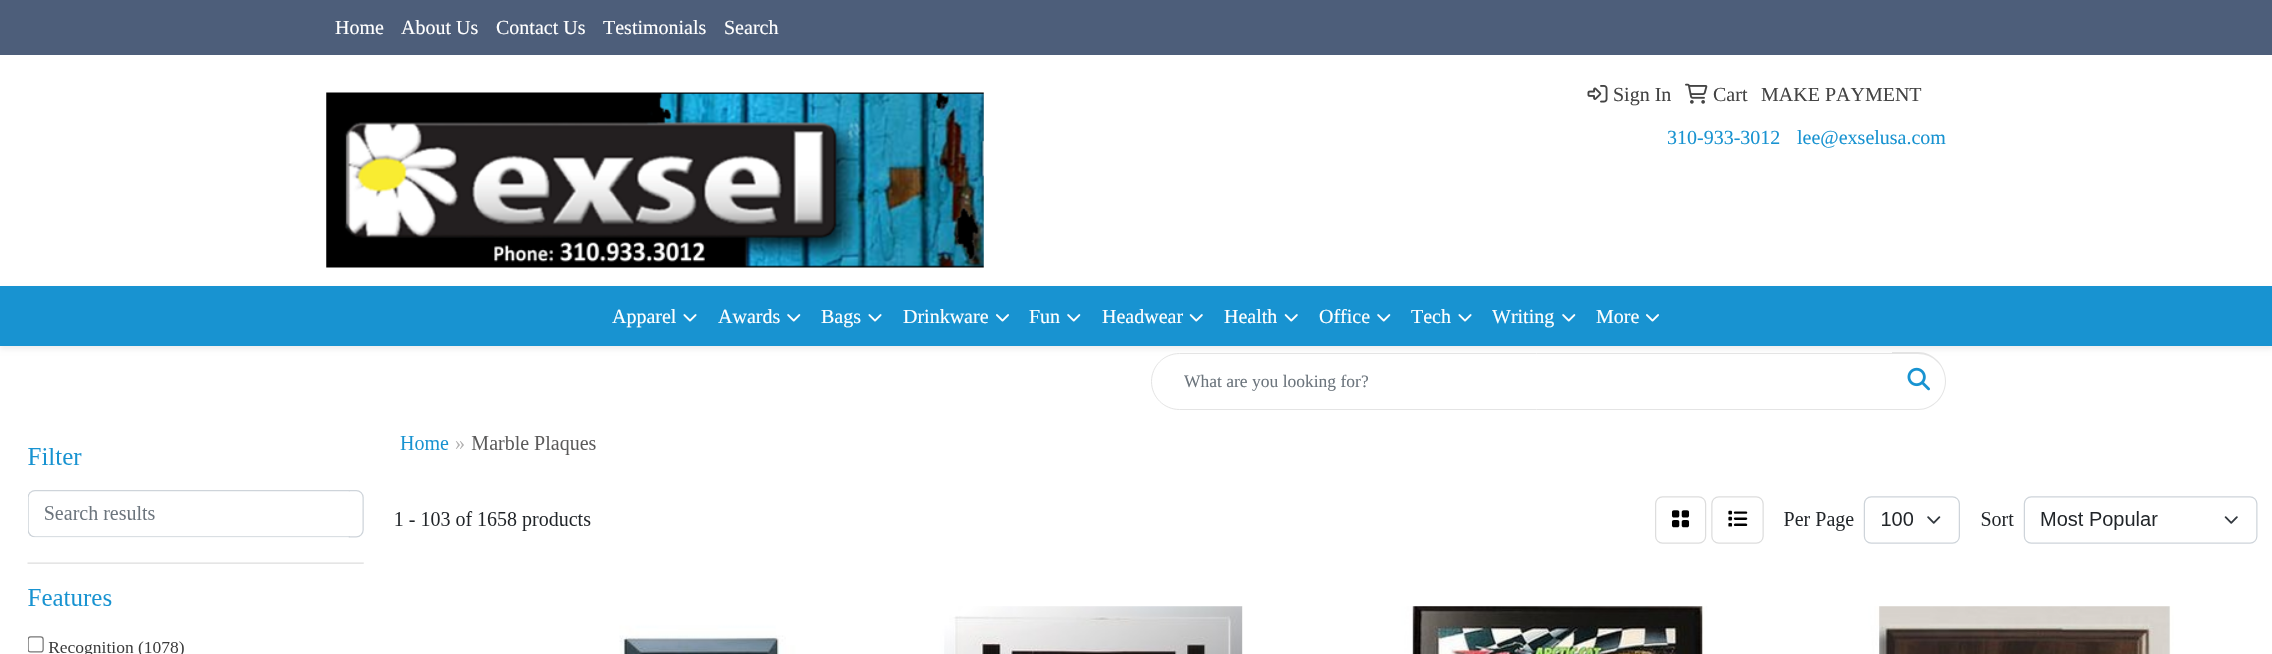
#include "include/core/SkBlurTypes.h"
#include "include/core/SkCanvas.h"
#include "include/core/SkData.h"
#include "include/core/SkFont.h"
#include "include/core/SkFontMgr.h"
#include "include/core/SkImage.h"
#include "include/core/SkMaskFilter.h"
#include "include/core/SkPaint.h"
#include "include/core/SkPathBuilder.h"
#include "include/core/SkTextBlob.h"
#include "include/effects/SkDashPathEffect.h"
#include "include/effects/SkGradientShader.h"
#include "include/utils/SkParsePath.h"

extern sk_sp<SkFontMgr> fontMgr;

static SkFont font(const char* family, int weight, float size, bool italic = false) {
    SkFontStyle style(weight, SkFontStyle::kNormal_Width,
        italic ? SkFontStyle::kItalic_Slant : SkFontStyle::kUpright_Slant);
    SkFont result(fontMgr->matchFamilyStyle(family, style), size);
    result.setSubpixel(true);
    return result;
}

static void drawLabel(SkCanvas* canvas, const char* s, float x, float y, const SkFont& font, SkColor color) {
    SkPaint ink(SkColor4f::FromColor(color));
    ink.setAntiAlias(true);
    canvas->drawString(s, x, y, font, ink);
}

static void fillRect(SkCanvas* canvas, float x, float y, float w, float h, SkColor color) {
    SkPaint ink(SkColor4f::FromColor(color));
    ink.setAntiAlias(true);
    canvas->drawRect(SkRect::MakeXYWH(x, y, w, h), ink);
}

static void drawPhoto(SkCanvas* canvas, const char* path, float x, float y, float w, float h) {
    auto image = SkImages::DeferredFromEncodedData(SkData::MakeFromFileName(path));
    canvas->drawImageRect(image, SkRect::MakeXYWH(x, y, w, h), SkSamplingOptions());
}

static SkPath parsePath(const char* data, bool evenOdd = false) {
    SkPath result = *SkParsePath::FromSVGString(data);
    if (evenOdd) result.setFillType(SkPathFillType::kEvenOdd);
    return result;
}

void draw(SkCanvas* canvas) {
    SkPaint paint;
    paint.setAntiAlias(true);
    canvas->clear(0xFFFFFFFF);
    fillRect(canvas, 0, 0, 2272, 55, 0xFF4D5E7A);
    SkFont font1 = font("Liberation Serif", 400, 20);
    drawLabel(canvas, "Home", 335, 34, font1, 0xFFFFFFFF);
    drawLabel(canvas, "About Us", 401, 34, font1, 0xFFFFFFFF);
    drawLabel(canvas, "Contact Us", 496, 34, font1, 0xFFFFFFFF);
    drawLabel(canvas, "Testimonials", 603, 34, font1, 0xFFFFFFFF);
    drawLabel(canvas, "Search", 724, 34, font1, 0xFFFFFFFF);
    drawPhoto(canvas, "assets/img1.png", 326, 92, 658, 176);
    drawPhoto(canvas, "assets/img2.png", 1587, 85, 21, 18);
    drawLabel(canvas, "Sign In", 1613, 101, font1, 0xFF444444);
    drawPhoto(canvas, "assets/img3.png", 1685, 83, 23, 21);
    drawLabel(canvas, "Cart", 1713, 101, font1, 0xFF444444);
    drawLabel(canvas, "MAKE PAYMENT", 1761, 101, font1, 0xFF444444);
    drawLabel(canvas, "310-933-3012", 1667, 144, font1, 0xFF1893D1);
    drawLabel(canvas, "lee@exselusa.com", 1797, 144, font1, 0xFF1893D1);
    paint.setColor(0x12000000);
    paint.setMaskFilter(SkMaskFilter::MakeBlur(kNormal_SkBlurStyle, 2.5f));
    canvas->drawRect(SkRect::MakeXYWH(0, 289, 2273, 60), paint);
    paint.setMaskFilter(nullptr);
    fillRect(canvas, 0, 286, 2272, 60, 0xFF1893D1);
    drawLabel(canvas, "Apparel", 612, 323, font1, 0xFFFFFFFF);
    drawPhoto(canvas, "assets/img4.png", 683, 314, 14, 8);
    drawLabel(canvas, "Awards", 718, 323, font1, 0xFFFFFFFF);
    drawPhoto(canvas, "assets/img5.png", 787, 314, 14, 8);
    drawLabel(canvas, "Bags", 821, 323, font1, 0xFFFFFFFF);
    drawPhoto(canvas, "assets/img4.png", 868, 314, 14, 8);
    drawLabel(canvas, "Drinkware", 903, 323, font1, 0xFFFFFFFF);
    drawPhoto(canvas, "assets/img6.png", 996, 314, 13, 8);
    drawLabel(canvas, "Fun", 1029, 323, font1, 0xFFFFFFFF);
    drawPhoto(canvas, "assets/img5.png", 1067, 314, 14, 8);
    drawLabel(canvas, "Headwear", 1102, 323, font1, 0xFFFFFFFF);
    drawPhoto(canvas, "assets/img7.png", 1189, 314, 14, 8);
    drawLabel(canvas, "Health", 1224, 323, font1, 0xFFFFFFFF);
    drawPhoto(canvas, "assets/img7.png", 1284, 314, 14, 8);
    drawLabel(canvas, "Office", 1319, 323, font1, 0xFFFFFFFF);
    drawPhoto(canvas, "assets/img5.png", 1377, 314, 14, 8);
    drawLabel(canvas, "Tech", 1411, 323, font1, 0xFFFFFFFF);
    drawPhoto(canvas, "assets/img4.png", 1458, 314, 14, 8);
    drawLabel(canvas, "Writing", 1492, 323, font1, 0xFFFFFFFF);
    drawPhoto(canvas, "assets/img5.png", 1562, 314, 14, 8);
    drawLabel(canvas, "More", 1596, 323, font1, 0xFFFFFFFF);
    drawPhoto(canvas, "assets/img6.png", 1646, 314, 13, 8);
    paint.setStroke(true);
    paint.setStrokeWidth(1);
    paint.setColor(0xFFE4E4E4);
    canvas->drawPath(parsePath("M1179.5 353.5H1893.5V409.5H1179.5C1164 409.5 1151.5 397 1151.5 381.5C1151.5 366 1164 353.5 1179.5 353.5Z"), paint);
    SkFont font2 = font("Liberation Serif", 400, 17.5f);
    drawLabel(canvas, "What are you looking for?", 1184, 387, font2, 0xFF6C757D);
    paint.setStroke(false);
    paint.setColor(0xFFFFFFFF);
    canvas->drawPath(parsePath("M1893 354H1917.5C1932.5 354 1945 366.5 1945 381.5C1945 396.5 1932.5 409 1917.5 409H1893Z"), paint);
    paint.setColor(0xFFE4E4E4);
    canvas->drawPath(parsePath("M1892 352H1918C1933 352 1946 365 1946 381C1946 397 1933 410 1918 410H1892ZM1892 354H1918C1933 354 1945 366 1945 381C1945 396 1933 409 1918 409H1892Z", true), paint);
    drawPhoto(canvas, "assets/img8.png", 1907, 367, 23, 24);
    drawPhoto(canvas, "assets/img9.png", 27, 436, 2231, 218);
}
